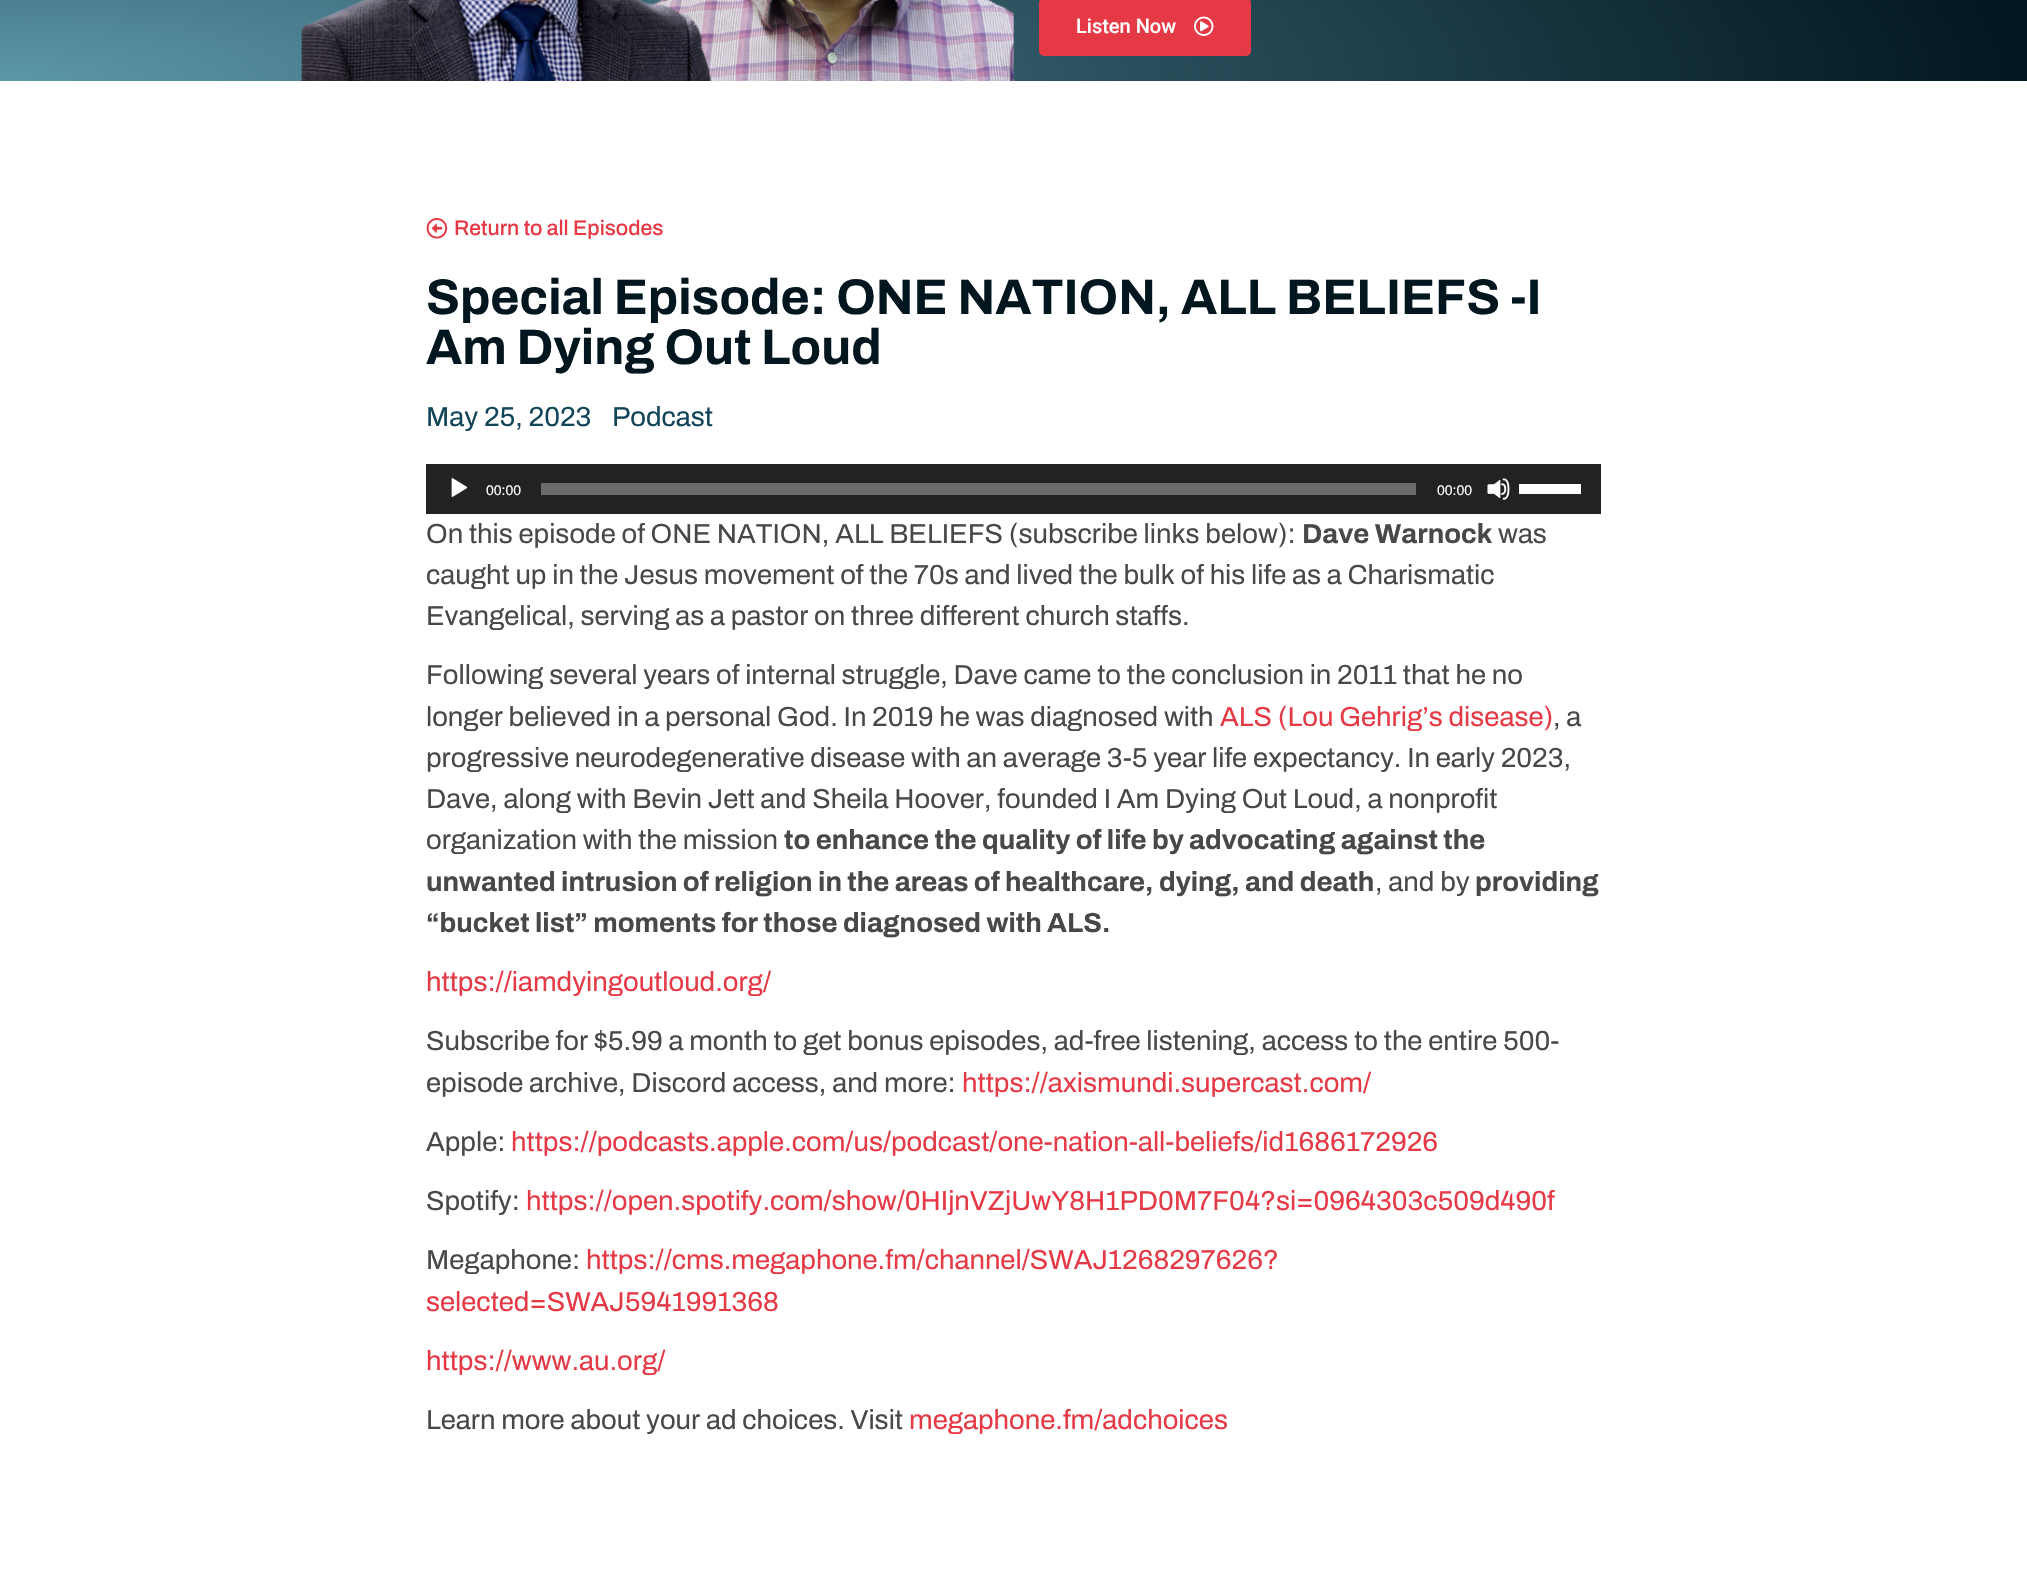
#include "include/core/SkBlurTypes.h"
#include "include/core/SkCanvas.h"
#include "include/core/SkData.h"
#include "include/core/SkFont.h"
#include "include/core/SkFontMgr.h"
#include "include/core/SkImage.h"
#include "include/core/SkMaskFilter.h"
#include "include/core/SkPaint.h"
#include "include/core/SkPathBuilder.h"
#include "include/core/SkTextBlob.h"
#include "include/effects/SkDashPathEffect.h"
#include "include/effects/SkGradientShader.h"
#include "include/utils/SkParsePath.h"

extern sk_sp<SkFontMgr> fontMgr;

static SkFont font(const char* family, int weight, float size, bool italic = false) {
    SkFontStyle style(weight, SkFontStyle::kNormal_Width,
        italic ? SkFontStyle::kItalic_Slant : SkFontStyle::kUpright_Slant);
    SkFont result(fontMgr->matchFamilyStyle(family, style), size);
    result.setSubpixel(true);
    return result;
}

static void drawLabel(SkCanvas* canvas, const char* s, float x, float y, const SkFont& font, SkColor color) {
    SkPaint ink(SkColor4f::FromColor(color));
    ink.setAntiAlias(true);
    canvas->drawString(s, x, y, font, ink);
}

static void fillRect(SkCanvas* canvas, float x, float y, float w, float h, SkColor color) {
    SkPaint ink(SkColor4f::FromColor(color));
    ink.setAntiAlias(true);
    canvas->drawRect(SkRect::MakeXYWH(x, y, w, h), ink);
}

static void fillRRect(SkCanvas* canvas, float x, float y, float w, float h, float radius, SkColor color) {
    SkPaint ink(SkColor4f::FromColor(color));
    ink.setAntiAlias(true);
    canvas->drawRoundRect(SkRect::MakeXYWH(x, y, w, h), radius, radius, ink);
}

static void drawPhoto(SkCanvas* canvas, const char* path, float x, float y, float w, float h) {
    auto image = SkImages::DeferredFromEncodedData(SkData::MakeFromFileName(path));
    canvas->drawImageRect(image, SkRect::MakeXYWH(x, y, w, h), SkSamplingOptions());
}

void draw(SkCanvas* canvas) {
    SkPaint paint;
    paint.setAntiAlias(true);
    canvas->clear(0xFFFFFFFF);
    {
        const SkColor colors[] = {0xFF5C97AA, 0xFF01161E};
        const float stops[] = {0, 0.71f};
        SkMatrix m = SkMatrix::Translate(0, 81).preScale(2867, 658);
        paint.setShader(SkGradientShader::MakeRadial({0, 0}, 1, colors, stops, 2, SkTileMode::kClamp, 0, &m));
        paint.setAlpha(255);
    }
    canvas->drawRect(SkRect::MakeXYWH(0, 0, 2027, 81), paint);
    drawPhoto(canvas, "assets/img1.png", 301, 0, 713, 81);
    fillRRect(canvas, 1039, -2, 212, 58, 5, 0xFFE63946);
    SkFont font1 = font("Roboto", 500, 20);
    drawLabel(canvas, "Listen Now", 1076, 33, font1, 0xFFFFFFFF);
    drawPhoto(canvas, "assets/img2.png", 1194, 16, 20, 20);
    drawPhoto(canvas, "assets/img3.png", 426, 218, 22, 21);
    SkFont font2 = font("Archivo", 500, 21.25f);
    drawLabel(canvas, "Return to all Episodes", 454, 235, font2, 0xFFE63946);
    SkFont font3 = font("Archivo", 700, 50);
    drawLabel(canvas, "Special Episode: ONE NATION, ALL BELIEFS -I", 426, 314, font3, 0xFF01161E);
    drawLabel(canvas, "Am Dying Out Loud", 426, 364, font3, 0xFF01161E);
    SkFont font4 = font("Archivo", 400, 27.5f);
    drawLabel(canvas, "May 25, 2023", 426, 426, font4, 0xFF124559);
    drawLabel(canvas, "Podcast", 612, 426, font4, 0xFF124559);
    fillRect(canvas, 426, 464, 1175, 50, 0xFF222222);
    drawPhoto(canvas, "assets/img4.png", 451, 478, 17, 19);
    SkFont font5 = font("Liberation Sans", 400, 14);
    drawLabel(canvas, "00:00", 486, 495, font5, 0xFFFFFFFF);
    fillRect(canvas, 541, 483, 875, 12, 0xFF6B6B6B);
    drawLabel(canvas, "00:00", 1437, 495, font5, 0xFFFFFFFF);
    drawPhoto(canvas, "assets/img5.png", 1487, 478, 23, 22);
    fillRect(canvas, 1519, 484, 62, 10, 0xFFFFFFFF);
    drawLabel(canvas, "On this episode of ONE NATION, ALL BELIEFS (subscribe links below):", 426, 543, font4, 0xFF484848);
    SkFont font6 = font("Archivo", 700, 27.5f);
    drawLabel(canvas, "Dave Warnock", 1302, 543, font6, 0xFF484848);
    drawLabel(canvas, "was", 1498, 543, font4, 0xFF484848);
    drawLabel(canvas, "caught up in the Jesus movement of the 70s and lived the bulk of his life as a Charismatic", 426, 584, font4, 0xFF484848);
    drawLabel(canvas, "Evangelical, serving as a pastor on three different church staffs.", 426, 625, font4, 0xFF484848);
    drawLabel(canvas, "Following several years of internal struggle, Dave came to the conclusion in 2011 that he no", 426, 684, font4, 0xFF484848);
    drawLabel(canvas, "longer believed in a personal God. In 2019 he was diagnosed with", 426, 726, font4, 0xFF484848);
    drawLabel(canvas, "ALS (Lou Gehrig’s disease)", 1220, 726, font4, 0xFFE63946);
    drawLabel(canvas, ", a", 1553, 726, font4, 0xFF484848);
    drawLabel(canvas, "progressive neurodegenerative disease with an average 3-5 year life expectancy. In early 2023,", 426, 767, font4, 0xFF484848);
    drawLabel(canvas, "Dave, along with Bevin Jett and Sheila Hoover, founded I Am Dying Out Loud, a nonprofit", 426, 808, font4, 0xFF484848);
    drawLabel(canvas, "organization with the mission", 426, 849, font4, 0xFF484848);
    drawLabel(canvas, "to enhance the quality of life by advocating against the", 784, 849, font6, 0xFF484848);
    drawLabel(canvas, "unwanted intrusion of religion in the areas of healthcare, dying, and death", 426, 891, font6, 0xFF484848);
    drawLabel(canvas, ", and by", 1375, 891, font4, 0xFF484848);
    drawLabel(canvas, "providing", 1475, 891, font6, 0xFF484848);
    drawLabel(canvas, "“bucket list” moments for those diagnosed with ALS.", 426, 932, font6, 0xFF484848);
    drawLabel(canvas, "https://iamdyingoutloud.org/", 426, 991, font4, 0xFFE63946);
    drawLabel(canvas, "Subscribe for $5.99 a month to get bonus episodes, ad-free listening, access to the entire 500-", 426, 1050, font4, 0xFF484848);
    drawLabel(canvas, "episode archive, Discord access, and more:", 426, 1092, font4, 0xFF484848);
    drawLabel(canvas, "https://axismundi.supercast.com/", 962, 1092, font4, 0xFFE63946);
    drawLabel(canvas, "Apple:", 426, 1151, font4, 0xFF484848);
    drawLabel(canvas, "https://podcasts.apple.com/us/podcast/one-nation-all-beliefs/id1686172926", 511, 1151, font4, 0xFFE63946);
    drawLabel(canvas, "Spotify:", 426, 1210, font4, 0xFF484848);
    drawLabel(canvas, "https://open.spotify.com/show/0HIjnVZjUwY8H1PD0M7F04?si=0964303c509d490f", 526, 1210, font4, 0xFFE63946);
    drawLabel(canvas, "Megaphone:", 426, 1269, font4, 0xFF484848);
    drawLabel(canvas, "https://cms.megaphone.fm/channel/SWAJ1268297626?", 586, 1269, font4, 0xFFE63946);
    drawLabel(canvas, "selected=SWAJ5941991368", 426, 1311, font4, 0xFFE63946);
    drawLabel(canvas, "https://www.au.org/", 426, 1370, font4, 0xFFE63946);
    drawLabel(canvas, "Learn more about your ad choices. Visit", 426, 1429, font4, 0xFF484848);
    drawLabel(canvas, "megaphone.fm/adchoices", 909, 1429, font4, 0xFFE63946);
}
